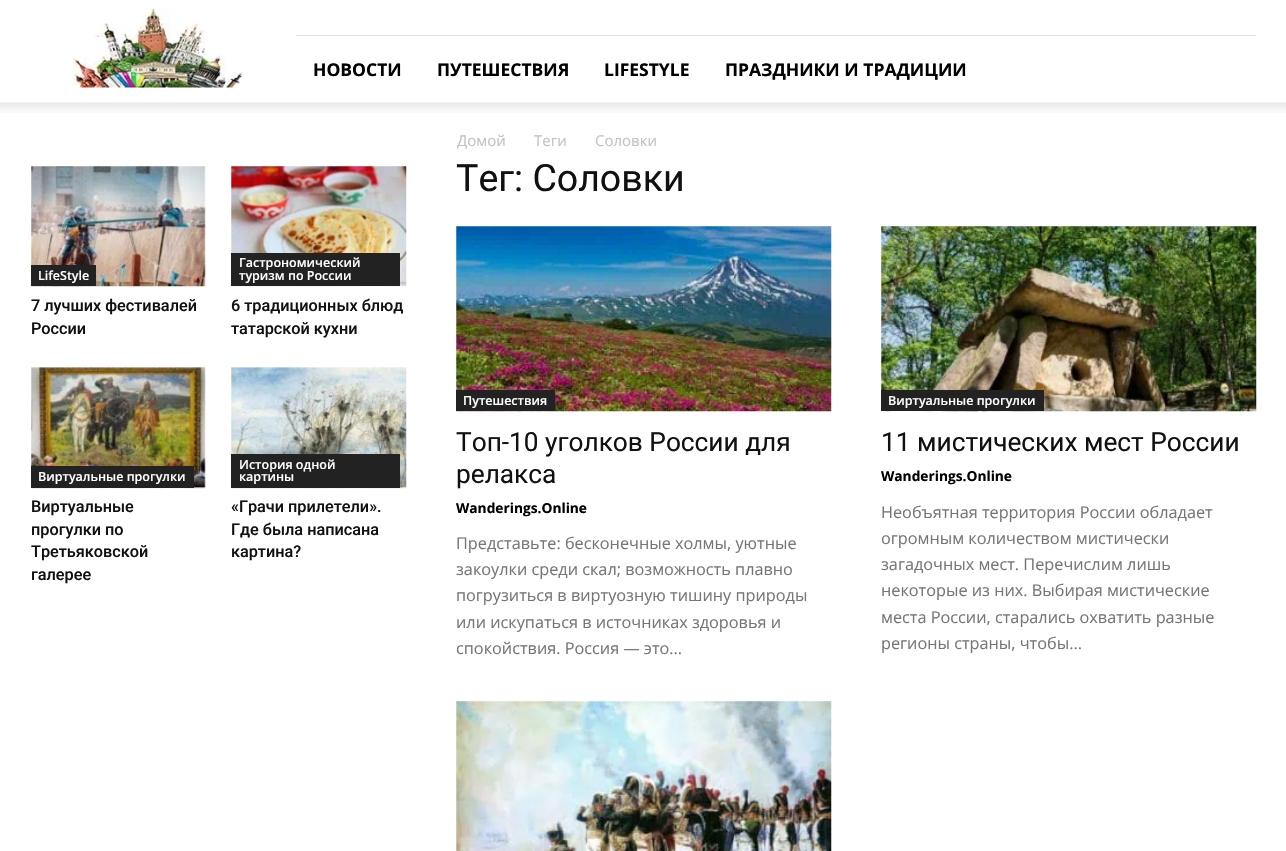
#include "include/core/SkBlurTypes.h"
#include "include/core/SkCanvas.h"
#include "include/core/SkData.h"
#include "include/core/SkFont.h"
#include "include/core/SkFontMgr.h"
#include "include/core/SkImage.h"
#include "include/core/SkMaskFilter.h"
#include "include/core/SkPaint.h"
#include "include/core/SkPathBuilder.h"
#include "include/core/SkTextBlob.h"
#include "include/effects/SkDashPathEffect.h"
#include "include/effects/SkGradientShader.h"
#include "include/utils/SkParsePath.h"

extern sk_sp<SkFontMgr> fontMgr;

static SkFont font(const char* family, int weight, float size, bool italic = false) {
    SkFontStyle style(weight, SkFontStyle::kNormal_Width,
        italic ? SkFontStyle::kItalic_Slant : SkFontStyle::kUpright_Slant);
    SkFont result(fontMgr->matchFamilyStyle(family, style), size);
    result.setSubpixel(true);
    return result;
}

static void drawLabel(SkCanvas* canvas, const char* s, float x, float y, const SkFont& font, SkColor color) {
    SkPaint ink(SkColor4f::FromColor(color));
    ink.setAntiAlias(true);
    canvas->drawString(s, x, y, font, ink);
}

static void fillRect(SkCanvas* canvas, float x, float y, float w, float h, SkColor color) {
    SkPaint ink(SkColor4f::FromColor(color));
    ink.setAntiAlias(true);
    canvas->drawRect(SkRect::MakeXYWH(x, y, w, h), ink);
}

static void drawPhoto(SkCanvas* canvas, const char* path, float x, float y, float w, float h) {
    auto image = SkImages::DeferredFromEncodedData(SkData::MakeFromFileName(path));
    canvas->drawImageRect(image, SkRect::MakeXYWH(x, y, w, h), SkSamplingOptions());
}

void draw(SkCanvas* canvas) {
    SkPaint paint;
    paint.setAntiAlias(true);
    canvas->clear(0xFFFFFFFF);
    drawPhoto(canvas, "assets/img1.png", 73, 8, 171, 80);
    fillRect(canvas, 296, 35, 960, 1, 0xFFE0E0E0);
    SkFont font1 = font("Open Sans", 700, 17.5f);
    drawLabel(canvas, "НОВОСТИ", 313, 76, font1, 0xFF000000);
    drawLabel(canvas, "ПУТЕШЕСТВИЯ", 437, 76, font1, 0xFF000000);
    drawLabel(canvas, "LIFESTYLE", 604, 76, font1, 0xFF000000);
    drawLabel(canvas, "ПРАЗДНИКИ И ТРАДИЦИИ", 725, 76, font1, 0xFF000000);
    drawPhoto(canvas, "assets/img2.png", 0, 102, 1286, 11);
    SkFont font2 = font("Open Sans", 400, 15);
    drawLabel(canvas, "Домой", 457, 146, font2, 0xFFC3C3C3);
    drawLabel(canvas, "Теги", 534, 146, font2, 0xFFC3C3C3);
    drawLabel(canvas, "Соловки", 595, 146, font2, 0xFFC3C3C3);
    drawPhoto(canvas, "assets/img3.png", 31, 166, 175, 121);
    fillRect(canvas, 31, 265, 65, 21, 0xFF222222);
    SkFont font3 = font("Open Sans", 600, 12.5f);
    drawLabel(canvas, "LifeStyle", 38, 280, font3, 0xFFFFFFFF);
    SkFont font4 = font("Roboto", 500, 16.25f);
    drawLabel(canvas, "7 лучших фестивалей", 31, 311, font4, 0xFF111111);
    drawLabel(canvas, "России", 31, 334, font4, 0xFF111111);
    drawPhoto(canvas, "assets/img4.png", 231, 166, 176, 121);
    fillRect(canvas, 231, 253, 169, 33, 0xFF222222);
    drawLabel(canvas, "Гастрономический", 239, 267, font3, 0xFFFFFFFF);
    drawLabel(canvas, "туризм по России", 239, 280, font3, 0xFFFFFFFF);
    drawLabel(canvas, "6 традиционных блюд", 231, 311, font4, 0xFF111111);
    drawLabel(canvas, "татарской кухни", 231, 334, font4, 0xFF111111);
    drawPhoto(canvas, "assets/img5.png", 31, 367, 175, 122);
    fillRect(canvas, 31, 466, 163, 22, 0xFF222222);
    drawLabel(canvas, "Виртуальные прогулки", 38, 481, font3, 0xFFFFFFFF);
    drawLabel(canvas, "Виртуальные", 31, 512, font4, 0xFF111111);
    drawLabel(canvas, "прогулки по", 31, 535, font4, 0xFF111111);
    drawLabel(canvas, "Третьяковской", 31, 557, font4, 0xFF111111);
    drawLabel(canvas, "галерее", 31, 580, font4, 0xFF111111);
    drawPhoto(canvas, "assets/img6.png", 231, 367, 176, 122);
    fillRect(canvas, 231, 454, 169, 34, 0xFF222222);
    drawLabel(canvas, "История одной", 239, 469, font3, 0xFFFFFFFF);
    drawLabel(canvas, "картины", 239, 481, font3, 0xFFFFFFFF);
    drawLabel(canvas, "«Грачи прилетели».", 231, 512, font4, 0xFF111111);
    drawLabel(canvas, "Где была написана", 231, 535, font4, 0xFF111111);
    drawLabel(canvas, "картина?", 231, 557, font4, 0xFF111111);
    SkFont font5 = font("Roboto", 400, 37.5f);
    drawLabel(canvas, "Тег: Соловки", 456, 191, font5, 0xFF111111);
    drawPhoto(canvas, "assets/img7.png", 456, 226, 376, 186);
    fillRect(canvas, 456, 390, 99, 21, 0xFF222222);
    drawLabel(canvas, "Путешествия", 463, 405, font3, 0xFFFFFFFF);
    SkFont font6 = font("Roboto", 400, 26.25f);
    drawLabel(canvas, "Топ-10 уголков России для", 456, 451, font6, 0xFF111111);
    drawLabel(canvas, "релакса", 456, 483, font6, 0xFF111111);
    SkFont font7 = font("Open Sans", 700, 13.75f);
    drawLabel(canvas, "Wanderings.Online", 456, 513, font7, 0xFF000000);
    SkFont font8 = font("Open Sans", 400, 16.25f);
    drawLabel(canvas, "Представьте: бесконечные холмы, уютные", 456, 549, font8, 0xFF767676);
    drawLabel(canvas, "закоулки среди скал; возможность плавно", 456, 575, font8, 0xFF767676);
    drawLabel(canvas, "погрузиться в виртуозную тишину природы", 456, 601, font8, 0xFF767676);
    drawLabel(canvas, "или искупаться в источниках здоровья и", 456, 628, font8, 0xFF767676);
    drawLabel(canvas, "спокойствия. Россия — это...", 456, 654, font8, 0xFF767676);
    drawPhoto(canvas, "assets/img8.png", 881, 226, 376, 186);
    fillRect(canvas, 881, 390, 163, 21, 0xFF222222);
    drawLabel(canvas, "Виртуальные прогулки", 888, 405, font3, 0xFFFFFFFF);
    drawLabel(canvas, "11 мистических мест России", 881, 451, font6, 0xFF111111);
    drawLabel(canvas, "Wanderings.Online", 881, 481, font7, 0xFF000000);
    drawLabel(canvas, "Необъятная территория России обладает", 881, 518, font8, 0xFF767676);
    drawLabel(canvas, "огромным количеством мистически", 881, 544, font8, 0xFF767676);
    drawLabel(canvas, "загадочных мест. Перечислим лишь", 881, 570, font8, 0xFF767676);
    drawLabel(canvas, "некоторые из них. Выбирая мистические", 881, 596, font8, 0xFF767676);
    drawLabel(canvas, "места России, старались охватить разные", 881, 623, font8, 0xFF767676);
    drawLabel(canvas, "регионы страны, чтобы...", 881, 649, font8, 0xFF767676);
    drawPhoto(canvas, "assets/img9.png", 456, 701, 376, 150);
}
